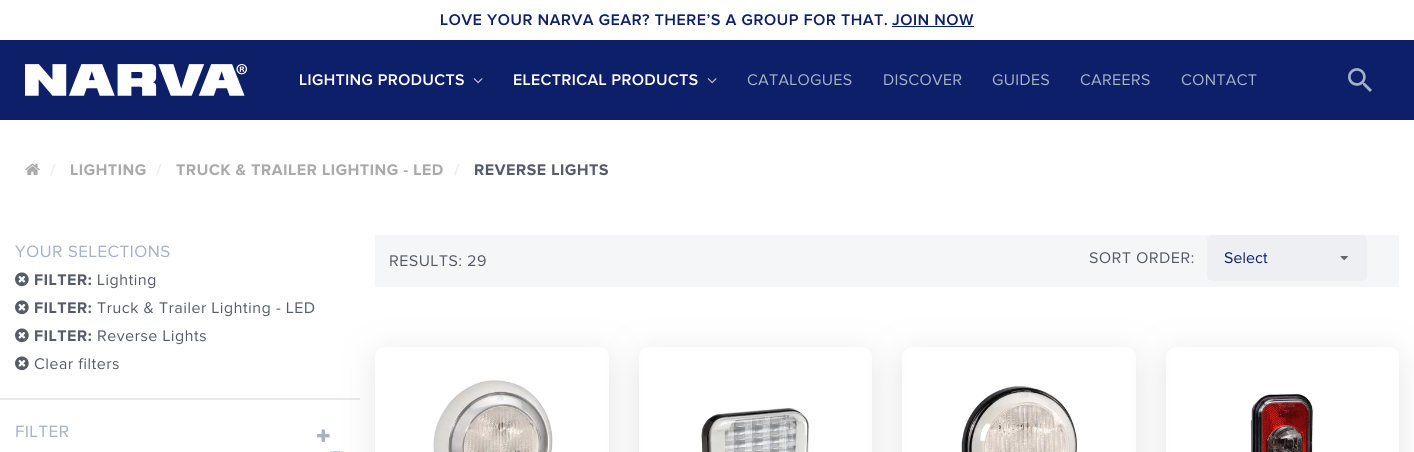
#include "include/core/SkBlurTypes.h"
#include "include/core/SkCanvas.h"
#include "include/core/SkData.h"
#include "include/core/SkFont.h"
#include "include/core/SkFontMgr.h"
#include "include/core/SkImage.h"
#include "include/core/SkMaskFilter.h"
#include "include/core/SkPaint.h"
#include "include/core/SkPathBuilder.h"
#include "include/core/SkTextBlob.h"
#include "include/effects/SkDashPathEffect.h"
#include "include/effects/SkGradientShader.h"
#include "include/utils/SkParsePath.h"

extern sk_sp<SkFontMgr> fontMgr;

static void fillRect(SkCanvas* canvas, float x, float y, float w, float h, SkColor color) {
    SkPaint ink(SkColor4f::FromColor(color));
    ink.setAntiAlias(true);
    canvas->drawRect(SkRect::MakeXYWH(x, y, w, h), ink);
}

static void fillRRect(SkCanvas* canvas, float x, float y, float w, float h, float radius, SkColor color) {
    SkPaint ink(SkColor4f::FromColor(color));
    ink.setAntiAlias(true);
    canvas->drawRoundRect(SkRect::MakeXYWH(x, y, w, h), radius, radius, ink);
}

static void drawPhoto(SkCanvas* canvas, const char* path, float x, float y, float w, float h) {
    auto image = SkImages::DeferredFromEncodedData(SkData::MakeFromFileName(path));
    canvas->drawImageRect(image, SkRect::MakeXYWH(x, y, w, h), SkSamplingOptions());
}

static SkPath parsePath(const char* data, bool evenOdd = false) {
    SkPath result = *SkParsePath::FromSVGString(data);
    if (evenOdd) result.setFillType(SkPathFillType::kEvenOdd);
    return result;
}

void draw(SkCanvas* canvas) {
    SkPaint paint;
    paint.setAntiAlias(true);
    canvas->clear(0xFFFFFFFF);
    drawPhoto(canvas, "assets/img1.png", 441, 14, 446, 12);
    drawPhoto(canvas, "assets/img2.png", 892, 14, 82, 12);
    fillRect(canvas, 892, 26, 82, 1, 0xFF0D1F69);
    fillRect(canvas, 0, 40, 1414, 80, 0xFF0D1F69);
    drawPhoto(canvas, "assets/img3.png", 25, 64, 222, 32);
    drawPhoto(canvas, "assets/img4.png", 300, 74, 164, 12);
    drawPhoto(canvas, "assets/img5.png", 473, 78, 10, 6);
    drawPhoto(canvas, "assets/img6.png", 514, 74, 184, 12);
    drawPhoto(canvas, "assets/img5.png", 707, 78, 10, 6);
    drawPhoto(canvas, "assets/img7.png", 747, 74, 105, 12);
    drawPhoto(canvas, "assets/img8.png", 884, 74, 78, 12);
    drawPhoto(canvas, "assets/img9.png", 992, 74, 57, 12);
    drawPhoto(canvas, "assets/img10.png", 1080, 74, 70, 12);
    drawPhoto(canvas, "assets/img11.png", 1181, 74, 76, 12);
    drawPhoto(canvas, "assets/img12.png", 1348, 68, 24, 24);
    drawPhoto(canvas, "assets/img13.png", 25, 163, 15, 12);
    paint.setColor(0xFFEEEEEE);
    canvas->drawPath(parsePath("M51.5 175.5L55.5 164H54L50 175.5Z"), paint);
    drawPhoto(canvas, "assets/img14.png", 71, 164, 75, 12);
    canvas->drawPath(parsePath("M157.5 175.5L161.5 164H160L156 175.5Z"), paint);
    drawPhoto(canvas, "assets/img15.png", 176, 164, 267, 12);
    canvas->drawPath(parsePath("M455.5 175.5L459.5 164H458L454 175.5Z"), paint);
    drawPhoto(canvas, "assets/img16.png", 475, 164, 133, 12);
    fillRect(canvas, 0, 398, 360, 2, 0xFFE6E9EE);
    drawPhoto(canvas, "assets/img17.png", 15, 245, 155, 13);
    drawPhoto(canvas, "assets/img18.png", 15, 272, 14, 15);
    drawPhoto(canvas, "assets/img19.png", 35, 274, 56, 12);
    drawPhoto(canvas, "assets/img20.png", 98, 274, 58, 15);
    drawPhoto(canvas, "assets/img18.png", 15, 300, 14, 15);
    drawPhoto(canvas, "assets/img19.png", 35, 302, 56, 12);
    drawPhoto(canvas, "assets/img21.png", 97, 302, 218, 15);
    drawPhoto(canvas, "assets/img18.png", 15, 328, 14, 15);
    drawPhoto(canvas, "assets/img19.png", 35, 330, 56, 12);
    drawPhoto(canvas, "assets/img22.png", 98, 330, 108, 15);
    drawPhoto(canvas, "assets/img18.png", 15, 356, 14, 15);
    drawPhoto(canvas, "assets/img23.png", 34, 358, 85, 12);
    drawPhoto(canvas, "assets/img24.png", 16, 425, 53, 12);
    drawPhoto(canvas, "assets/img25.png", 317, 429, 13, 13);
    drawPhoto(canvas, "assets/img26.png", 330, 451, 13, 1);
    fillRect(canvas, 375, 235, 1024, 52, 0xFFF5F6F8);
    drawPhoto(canvas, "assets/img27.png", 390, 255, 96, 12);
    drawPhoto(canvas, "assets/img28.png", 1089, 252, 105, 12);
    fillRRect(canvas, 1207, 235, 160, 46, 5, 0xFFEDEFF3);
    drawPhoto(canvas, "assets/img29.png", 1340, 256, 8, 5);
    drawPhoto(canvas, "assets/img30.png", 1224, 252, 44, 12);
    canvas->save();
    canvas->clipPath(parsePath("M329 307H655V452H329ZM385 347H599C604.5 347 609 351.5 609 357V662C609 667.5 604.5 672 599 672H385C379.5 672 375 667.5 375 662V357C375 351.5 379.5 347 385 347Z", true), true);
    paint.setColor(0x1A000000);
    paint.setMaskFilter(SkMaskFilter::MakeBlur(kNormal_SkBlurStyle, 15));
    canvas->drawRoundRect(SkRect::MakeXYWH(375, 353, 234, 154), 10, 10, paint);
    paint.setMaskFilter(nullptr);
    canvas->restore();
    drawPhoto(canvas, "assets/img31.png", 432, 380, 121, 72);
    canvas->save();
    canvas->clipPath(parsePath("M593 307H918V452H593ZM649 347H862C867.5 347 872 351.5 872 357V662C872 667.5 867.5 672 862 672H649C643.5 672 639 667.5 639 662V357C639 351.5 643.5 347 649 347Z", true), true);
    paint.setMaskFilter(SkMaskFilter::MakeBlur(kNormal_SkBlurStyle, 15));
    canvas->drawRoundRect(SkRect::MakeXYWH(639, 353, 233, 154), 10, 10, paint);
    paint.setMaskFilter(nullptr);
    canvas->restore();
    drawPhoto(canvas, "assets/img32.png", 701, 407, 108, 45);
    canvas->save();
    canvas->clipPath(parsePath("M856 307H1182V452H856ZM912 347H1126C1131.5 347 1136 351.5 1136 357V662C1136 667.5 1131.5 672 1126 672H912C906.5 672 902 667.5 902 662V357C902 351.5 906.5 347 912 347Z", true), true);
    paint.setMaskFilter(SkMaskFilter::MakeBlur(kNormal_SkBlurStyle, 15));
    canvas->drawRoundRect(SkRect::MakeXYWH(902, 353, 234, 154), 10, 10, paint);
    paint.setMaskFilter(nullptr);
    canvas->restore();
    drawPhoto(canvas, "assets/img33.png", 961, 386, 117, 66);
    canvas->save();
    canvas->clipPath(parsePath("M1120 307H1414V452H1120ZM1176 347H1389C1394.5 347 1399 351.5 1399 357V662C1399 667.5 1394.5 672 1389 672H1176C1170.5 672 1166 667.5 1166 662V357C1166 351.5 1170.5 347 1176 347Z", true), true);
    paint.setMaskFilter(SkMaskFilter::MakeBlur(kNormal_SkBlurStyle, 15));
    canvas->drawRoundRect(SkRect::MakeXYWH(1166, 353, 233, 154), 10, 10, paint);
    paint.setMaskFilter(nullptr);
    canvas->restore();
    drawPhoto(canvas, "assets/img34.png", 1250, 393, 64, 59);
}
